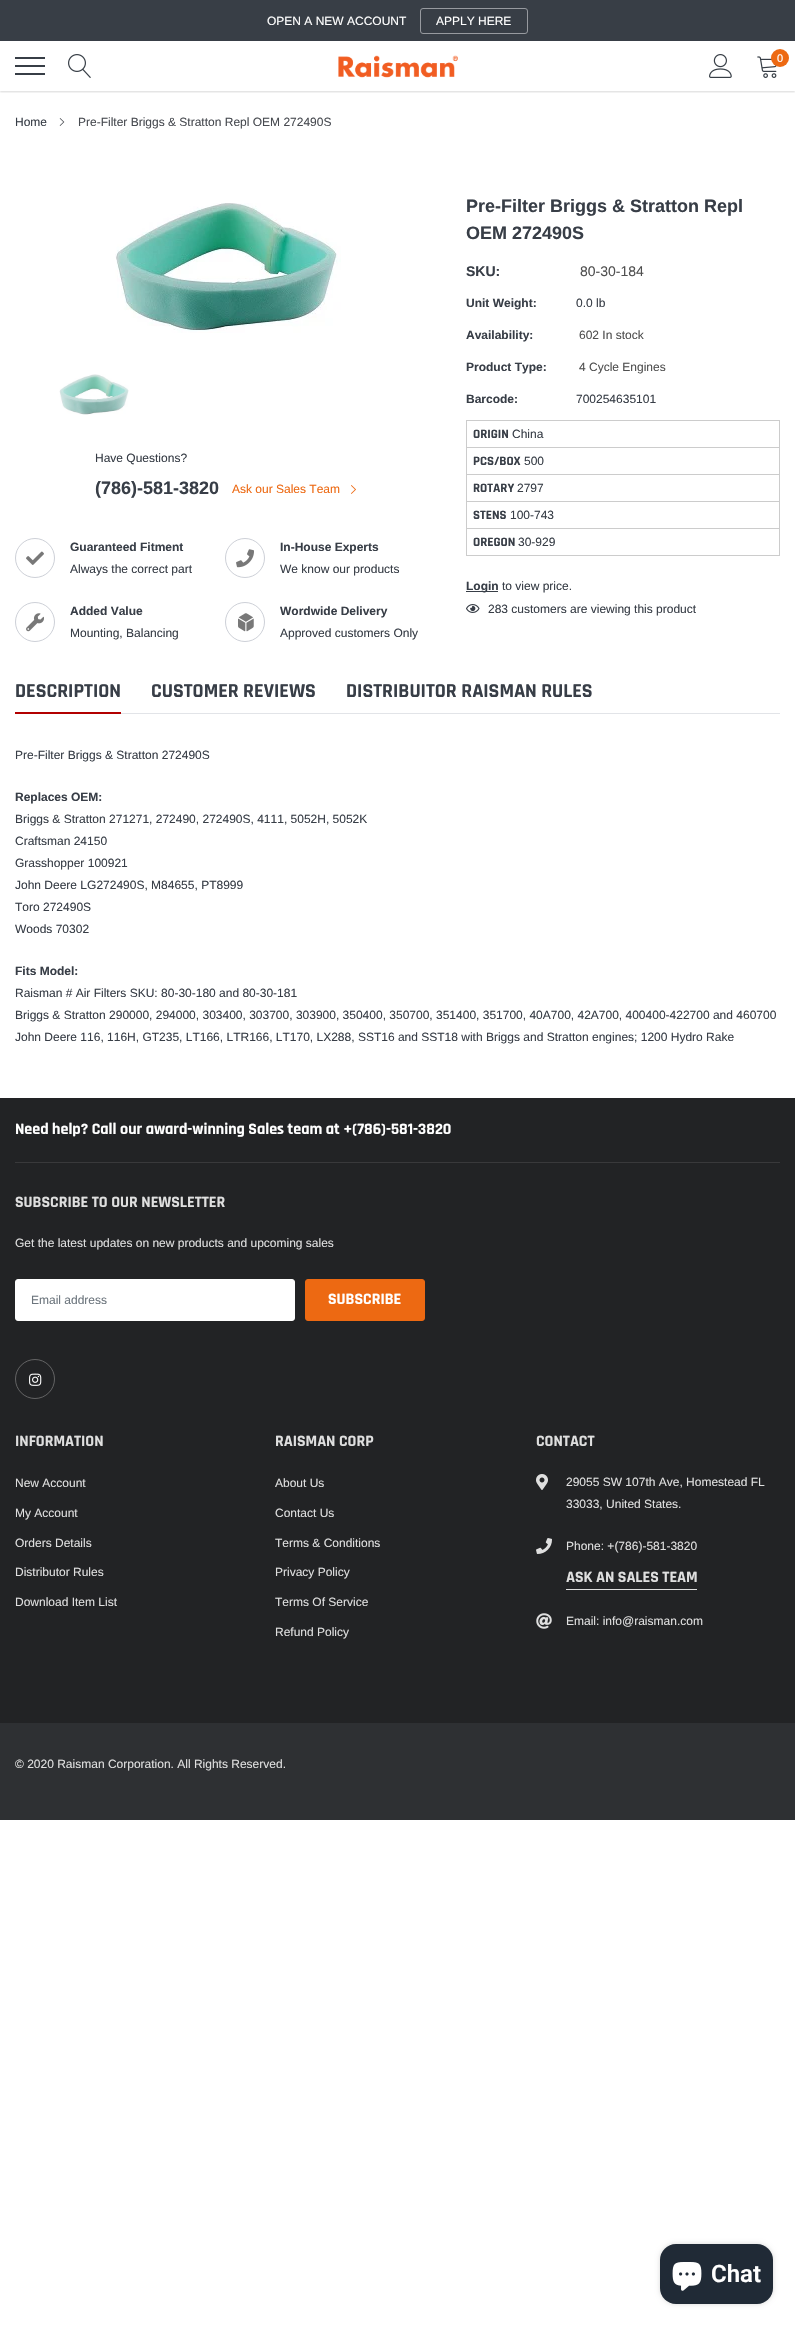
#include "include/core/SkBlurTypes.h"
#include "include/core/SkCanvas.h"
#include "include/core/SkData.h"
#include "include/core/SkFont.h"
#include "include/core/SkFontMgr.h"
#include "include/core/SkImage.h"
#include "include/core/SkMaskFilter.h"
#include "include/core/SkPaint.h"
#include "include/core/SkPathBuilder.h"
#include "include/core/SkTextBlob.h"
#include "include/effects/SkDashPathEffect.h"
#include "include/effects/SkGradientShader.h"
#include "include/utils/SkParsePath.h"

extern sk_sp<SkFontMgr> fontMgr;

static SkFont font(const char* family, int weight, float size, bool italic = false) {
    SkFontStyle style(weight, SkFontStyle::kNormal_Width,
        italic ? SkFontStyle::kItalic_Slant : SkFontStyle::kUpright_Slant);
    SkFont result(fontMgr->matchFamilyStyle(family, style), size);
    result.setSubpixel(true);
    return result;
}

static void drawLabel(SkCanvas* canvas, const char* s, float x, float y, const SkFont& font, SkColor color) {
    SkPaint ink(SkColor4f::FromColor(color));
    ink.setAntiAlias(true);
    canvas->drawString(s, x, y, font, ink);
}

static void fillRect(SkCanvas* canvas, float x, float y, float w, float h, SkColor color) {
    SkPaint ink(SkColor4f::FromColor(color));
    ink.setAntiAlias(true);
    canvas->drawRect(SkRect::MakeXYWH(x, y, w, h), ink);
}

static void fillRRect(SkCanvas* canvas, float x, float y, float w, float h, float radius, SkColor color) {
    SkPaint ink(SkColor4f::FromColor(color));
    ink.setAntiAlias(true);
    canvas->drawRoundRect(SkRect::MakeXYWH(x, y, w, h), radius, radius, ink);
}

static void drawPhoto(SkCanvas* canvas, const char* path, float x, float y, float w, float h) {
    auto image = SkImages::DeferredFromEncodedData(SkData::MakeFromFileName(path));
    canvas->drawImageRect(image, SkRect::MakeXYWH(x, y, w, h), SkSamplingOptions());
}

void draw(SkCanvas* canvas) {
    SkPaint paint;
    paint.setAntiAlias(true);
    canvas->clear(0xFFFFFFFF);
    fillRect(canvas, 0, 0, 795, 41, 0xFF383E46);
    SkFont font1 = font("Arimo", 400, 12);
    drawLabel(canvas, "OPEN A NEW ACCOUNT", 267, 25, font1, 0xFFFFFFFF);
    paint.setStroke(true);
    paint.setStrokeWidth(1);
    paint.setColor(0xFF979A9F);
    canvas->drawRoundRect(SkRect::MakeXYWH(420.5f, 8.5f, 107, 25), 2.5f, 2.5f, paint);
    drawLabel(canvas, "APPLY HERE", 436, 25, font1, 0xFFFFFFFF);
    canvas->save();
    canvas->clipRect(SkRect::MakeXYWH(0, 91, 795, 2));
    paint.setStroke(false);
    paint.setColor(0x26000000);
    paint.setMaskFilter(SkMaskFilter::MakeBlur(kNormal_SkBlurStyle, 1));
    canvas->drawRect(SkRect::MakeXYWH(0, 42, 795, 50), paint);
    paint.setMaskFilter(nullptr);
    canvas->restore();
    fillRect(canvas, 15, 65, 30, 2, 0xFF373E46);
    fillRect(canvas, 15, 57, 30, 2, 0xFF373E46);
    fillRect(canvas, 15, 73, 30, 2, 0xFF373E46);
    drawPhoto(canvas, "assets/img1.png", 68, 54, 23, 24);
    drawPhoto(canvas, "assets/img2.png", 338, 55, 120, 23);
    drawPhoto(canvas, "assets/img3.png", 709, 54, 23, 24);
    drawPhoto(canvas, "assets/img4.png", 757, 56, 20, 22);
    paint.setColor(0xFFED6912);
    canvas->drawCircle(780, 58, 9, paint);
    SkFont font2 = font("Arimo", 400, 11);
    drawLabel(canvas, "0", 777, 62, font2, 0xFFFFFFFF);
    drawLabel(canvas, "Home", 15, 126, font1, 0xFF383E47);
    drawPhoto(canvas, "assets/img5.png", 59, 118, 6, 8);
    drawLabel(canvas, "Pre-Filter Briggs & Stratton Repl OEM 272490S", 78, 126, font1, 0xFF484B51);
    drawPhoto(canvas, "assets/img6.png", 115, 203, 226, 130);
    drawPhoto(canvas, "assets/img7.png", 59, 374, 70, 41);
    drawLabel(canvas, "Have Questions?", 95, 462, font1, 0xFF383E47);
    SkFont font3 = font("Arimo", 700, 18);
    drawLabel(canvas, "(786)-581-3820", 95, 494, font3, 0xFF383E47);
    drawLabel(canvas, "Ask our Sales Team", 232, 493, font1, 0xFFED6912);
    drawPhoto(canvas, "assets/img8.png", 351, 485, 5, 9);
    paint.setStroke(true);
    paint.setColor(0xFFCDD0D7);
    canvas->drawCircle(35, 558, 19.5f, paint);
    drawPhoto(canvas, "assets/img9.png", 26, 551, 18, 14);
    SkFont font4 = font("Arimo", 700, 12);
    drawLabel(canvas, "Guaranteed Fitment", 70, 551, font4, 0xFF383E47);
    drawLabel(canvas, "Always the correct part", 70, 573, font1, 0xFF383E47);
    canvas->drawCircle(245, 558, 19.5f, paint);
    drawPhoto(canvas, "assets/img10.png", 236, 549, 18, 19);
    drawLabel(canvas, "In-House Experts", 280, 551, font4, 0xFF383E47);
    drawLabel(canvas, "We know our products", 280, 573, font1, 0xFF383E47);
    canvas->drawCircle(35, 622, 19.5f, paint);
    drawPhoto(canvas, "assets/img11.png", 26, 613, 18, 19);
    drawLabel(canvas, "Added Value", 70, 615, font4, 0xFF383E47);
    drawLabel(canvas, "Mounting, Balancing", 70, 637, font1, 0xFF383E47);
    canvas->drawCircle(245, 622, 19.5f, paint);
    drawPhoto(canvas, "assets/img12.png", 238, 613, 16, 19);
    drawLabel(canvas, "Wordwide Delivery", 280, 615, font4, 0xFF383E47);
    drawLabel(canvas, "Approved customers Only", 280, 637, font1, 0xFF383E47);
    drawLabel(canvas, "Pre-Filter Briggs & Stratton Repl", 466, 212, font3, 0xFF383E47);
    drawLabel(canvas, "OEM 272490S", 466, 239, font3, 0xFF383E47);
    SkFont font5 = font("Arimo", 700, 14);
    drawLabel(canvas, "SKU:", 466, 276, font5, 0xFF383E47);
    SkFont font6 = font("Arimo", 400, 14);
    drawLabel(canvas, "80-30-184", 580, 276, font6, 0xFF505050);
    drawLabel(canvas, "Unit Weight:", 466, 307, font4, 0xFF383E47);
    drawLabel(canvas, "0.0 lb", 576, 307, font1, 0xFF383E47);
    drawLabel(canvas, "Availability:", 466, 339, font4, 0xFF383E47);
    drawLabel(canvas, "602 In stock", 579, 339, font1, 0xFF505050);
    drawLabel(canvas, "Product Type:", 466, 371, font4, 0xFF383E47);
    drawLabel(canvas, "4 Cycle Engines", 579, 371, font1, 0xFF505050);
    drawLabel(canvas, "Barcode:", 466, 403, font4, 0xFF383E47);
    drawLabel(canvas, "700254635101", 576, 403, font1, 0xFF383E47);
    paint.setColor(0xFFCCCCCC);
    canvas->drawRect(SkRect::MakeXYWH(466.5f, 420.5f, 313, 27), paint);
    SkFont font7 = font("Rajdhani", 700, 13);
    drawLabel(canvas, "ORIGIN", 473, 438, font7, 0xFF383E47);
    drawLabel(canvas, "China", 512, 438, font1, 0xFF383E47);
    canvas->drawRect(SkRect::MakeXYWH(466.5f, 447.5f, 313, 27), paint);
    drawLabel(canvas, "PCS/BOX", 473, 465, font7, 0xFF383E47);
    drawLabel(canvas, "500", 524, 465, font1, 0xFF383E47);
    canvas->drawRect(SkRect::MakeXYWH(466.5f, 474.5f, 313, 27), paint);
    drawLabel(canvas, "ROTARY", 473, 492, font7, 0xFF383E47);
    drawLabel(canvas, "2797", 517, 492, font1, 0xFF383E47);
    canvas->drawRect(SkRect::MakeXYWH(466.5f, 501.5f, 313, 27), paint);
    drawLabel(canvas, "STENS", 473, 519, font7, 0xFF383E47);
    drawLabel(canvas, "100-743", 510, 519, font1, 0xFF383E47);
    canvas->drawRect(SkRect::MakeXYWH(466.5f, 528.5f, 313, 27), paint);
    drawLabel(canvas, "OREGON", 473, 546, font7, 0xFF383E47);
    drawLabel(canvas, "30-929", 518, 546, font1, 0xFF383E47);
    fillRect(canvas, 466, 591, 32, 1, 0xFF383E47);
    drawLabel(canvas, "Login", 466, 590, font4, 0xFF383E47);
    drawLabel(canvas, "to view price.", 502, 590, font1, 0xFF383E47);
    drawPhoto(canvas, "assets/img13.png", 466, 604, 14, 9);
    drawLabel(canvas, "283 customers are viewing this product", 488, 613, font1, 0xFF383E47);
    fillRect(canvas, 121, 713, 659, 1, 0xFFE2E4E8);
    SkFont font8 = font("Rajdhani", 700, 20);
    drawLabel(canvas, "DESCRIPTION", 15, 697, font8, 0xFF383E47);
    fillRect(canvas, 15, 712, 106, 2, 0xFFB20000);
    drawLabel(canvas, "CUSTOMER REVIEWS", 151, 697, font8, 0xFF383E47);
    drawLabel(canvas, "DISTRIBUITOR RAISMAN RULES", 346, 697, font8, 0xFF383E47);
    drawLabel(canvas, "Pre-Filter Briggs & Stratton 272490S", 15, 759, font1, 0xFF383E47);
    drawLabel(canvas, "Replaces OEM:", 15, 801, font4, 0xFF383E47);
    drawLabel(canvas, "Briggs & Stratton 271271, 272490, 272490S, 4111, 5052H, 5052K", 15, 823, font1, 0xFF383E47);
    drawLabel(canvas, "Craftsman 24150", 15, 845, font1, 0xFF383E47);
    drawLabel(canvas, "Grasshopper 100921", 15, 867, font1, 0xFF383E47);
    drawLabel(canvas, "John Deere LG272490S, M84655, PT8999", 15, 889, font1, 0xFF383E47);
    drawLabel(canvas, "Toro 272490S", 15, 911, font1, 0xFF383E47);
    drawLabel(canvas, "Woods 70302", 15, 933, font1, 0xFF383E47);
    drawLabel(canvas, "Fits Model:", 15, 975, font4, 0xFF383E47);
    drawLabel(canvas, "Raisman # Air Filters SKU: 80-30-180 and 80-30-181", 15, 997, font1, 0xFF383E47);
    drawLabel(canvas, "Briggs & Stratton 290000, 294000, 303400, 303700, 303900, 350400, 350700, 351400, 351700, 40A700, 42A700, 400400-422700 and 460700", 15, 1019, font1, 0xFF383E47);
    drawLabel(canvas, "John Deere 116, 116H, GT235, LT166, LTR166, LT170, LX288, SST16 and SST18 with Briggs and Stratton engines; 1200 Hydro Rake", 15, 1041, font1, 0xFF383E47);
    fillRect(canvas, 0, 1098, 795, 625, 0xFF222325);
    fillRect(canvas, 15, 1162, 765, 1, 0xFF39393B);
    SkFont font9 = font("Rajdhani", 700, 16);
    drawLabel(canvas, "Need help? Call our award-winning Sales team at +(786)-581-3820", 15, 1134, font9, 0xFFFFFFFF);
    drawLabel(canvas, "SUBSCRIBE TO OUR NEWSLETTER", 15, 1207, font9, 0xFFDFDFDF);
    drawLabel(canvas, "Get the latest updates on new products and upcoming sales", 15, 1247, font1, 0xFFDFDFDF);
    paint.setStroke(false);
    paint.setColor(0xFFFFFFFF);
    canvas->drawRoundRect(SkRect::MakeXYWH(15.5f, 1279.5f, 279, 41), 2.5f, 2.5f, paint);
    paint.setStroke(true);
    canvas->drawRoundRect(SkRect::MakeXYWH(15.5f, 1279.5f, 279, 41), 2.5f, 2.5f, paint);
    drawLabel(canvas, "Email address", 31, 1304, font1, 0xFF6C757D);
    paint.setStroke(false);
    paint.setColor(0xFFED6912);
    canvas->drawRoundRect(SkRect::MakeXYWH(305.5f, 1279.5f, 119, 41), 2.5f, 2.5f, paint);
    paint.setStroke(true);
    canvas->drawRoundRect(SkRect::MakeXYWH(305.5f, 1279.5f, 119, 41), 2.5f, 2.5f, paint);
    drawLabel(canvas, "SUBSCRIBE", 328, 1304, font9, 0xFFFFFFFF);
    paint.setColor(0xFF636364);
    canvas->drawCircle(35, 1379, 19.5f, paint);
    drawPhoto(canvas, "assets/img14.png", 29, 1373, 13, 13);
    drawLabel(canvas, "INFORMATION", 15, 1446, font9, 0xFFDFDFDF);
    drawLabel(canvas, "New Account", 15, 1487, font1, 0xFFDFDFDF);
    drawLabel(canvas, "My Account", 15, 1517, font1, 0xFFDFDFDF);
    drawLabel(canvas, "Orders Details", 15, 1547, font1, 0xFFDFDFDF);
    drawLabel(canvas, "Distributor Rules", 15, 1576, font1, 0xFFDFDFDF);
    drawLabel(canvas, "Download Item List", 15, 1606, font1, 0xFFDFDFDF);
    drawLabel(canvas, "RAISMAN CORP", 275, 1446, font9, 0xFFDFDFDF);
    drawLabel(canvas, "About Us", 275, 1487, font1, 0xFFDFDFDF);
    drawLabel(canvas, "Contact Us", 275, 1517, font1, 0xFFDFDFDF);
    drawLabel(canvas, "Terms & Conditions", 275, 1547, font1, 0xFFDFDFDF);
    drawLabel(canvas, "Privacy Policy", 275, 1576, font1, 0xFFDFDFDF);
    drawLabel(canvas, "Terms Of Service", 275, 1606, font1, 0xFFDFDFDF);
    drawLabel(canvas, "Refund Policy", 275, 1636, font1, 0xFFDFDFDF);
    drawLabel(canvas, "CONTACT", 536, 1446, font9, 0xFFDFDFDF);
    drawPhoto(canvas, "assets/img15.png", 536, 1474, 12, 16);
    drawLabel(canvas, "29055 SW 107th Ave, Homestead FL", 566, 1486, font1, 0xFFDFDFDF);
    drawLabel(canvas, "33033, United States.", 566, 1508, font1, 0xFFDFDFDF);
    drawPhoto(canvas, "assets/img16.png", 536, 1538, 16, 16);
    drawLabel(canvas, "Phone: +(786)-581-3820", 566, 1550, font1, 0xFFDFDFDF);
    fillRect(canvas, 566, 1589, 131, 1, 0xFFDFDFDF);
    drawLabel(canvas, "ASK AN SALES TEAM", 566, 1582, font9, 0xFFDFDFDF);
    drawPhoto(canvas, "assets/img17.png", 536, 1613, 16, 16);
    drawLabel(canvas, "Email: info@raisman.com", 566, 1625, font1, 0xFFDFDFDF);
    fillRect(canvas, 0, 1723, 795, 97, 0xFF2E3033);
    drawLabel(canvas, "© 2020 Raisman Corporation. All Rights Reserved.", 15, 1768, font1, 0xFFDFDFDF);
    paint.setStroke(false);
    paint.setColor(0x26000000);
    paint.setMaskFilter(SkMaskFilter::MakeBlur(kNormal_SkBlurStyle, 2.5f));
    canvas->drawRoundRect(SkRect::MakeXYWH(660, 2244, 113, 60), 16, 16, paint);
    paint.setMaskFilter(nullptr);
    fillRRect(canvas, 660, 2244, 113, 60, 16, 0xFF202A36);
    drawPhoto(canvas, "assets/img18.png", 672, 2262, 30, 29);
    SkFont font10 = font("Roboto", 600, 24);
    drawLabel(canvas, "Chat", 711, 2282, font10, 0xFFFFFFFF);
}
